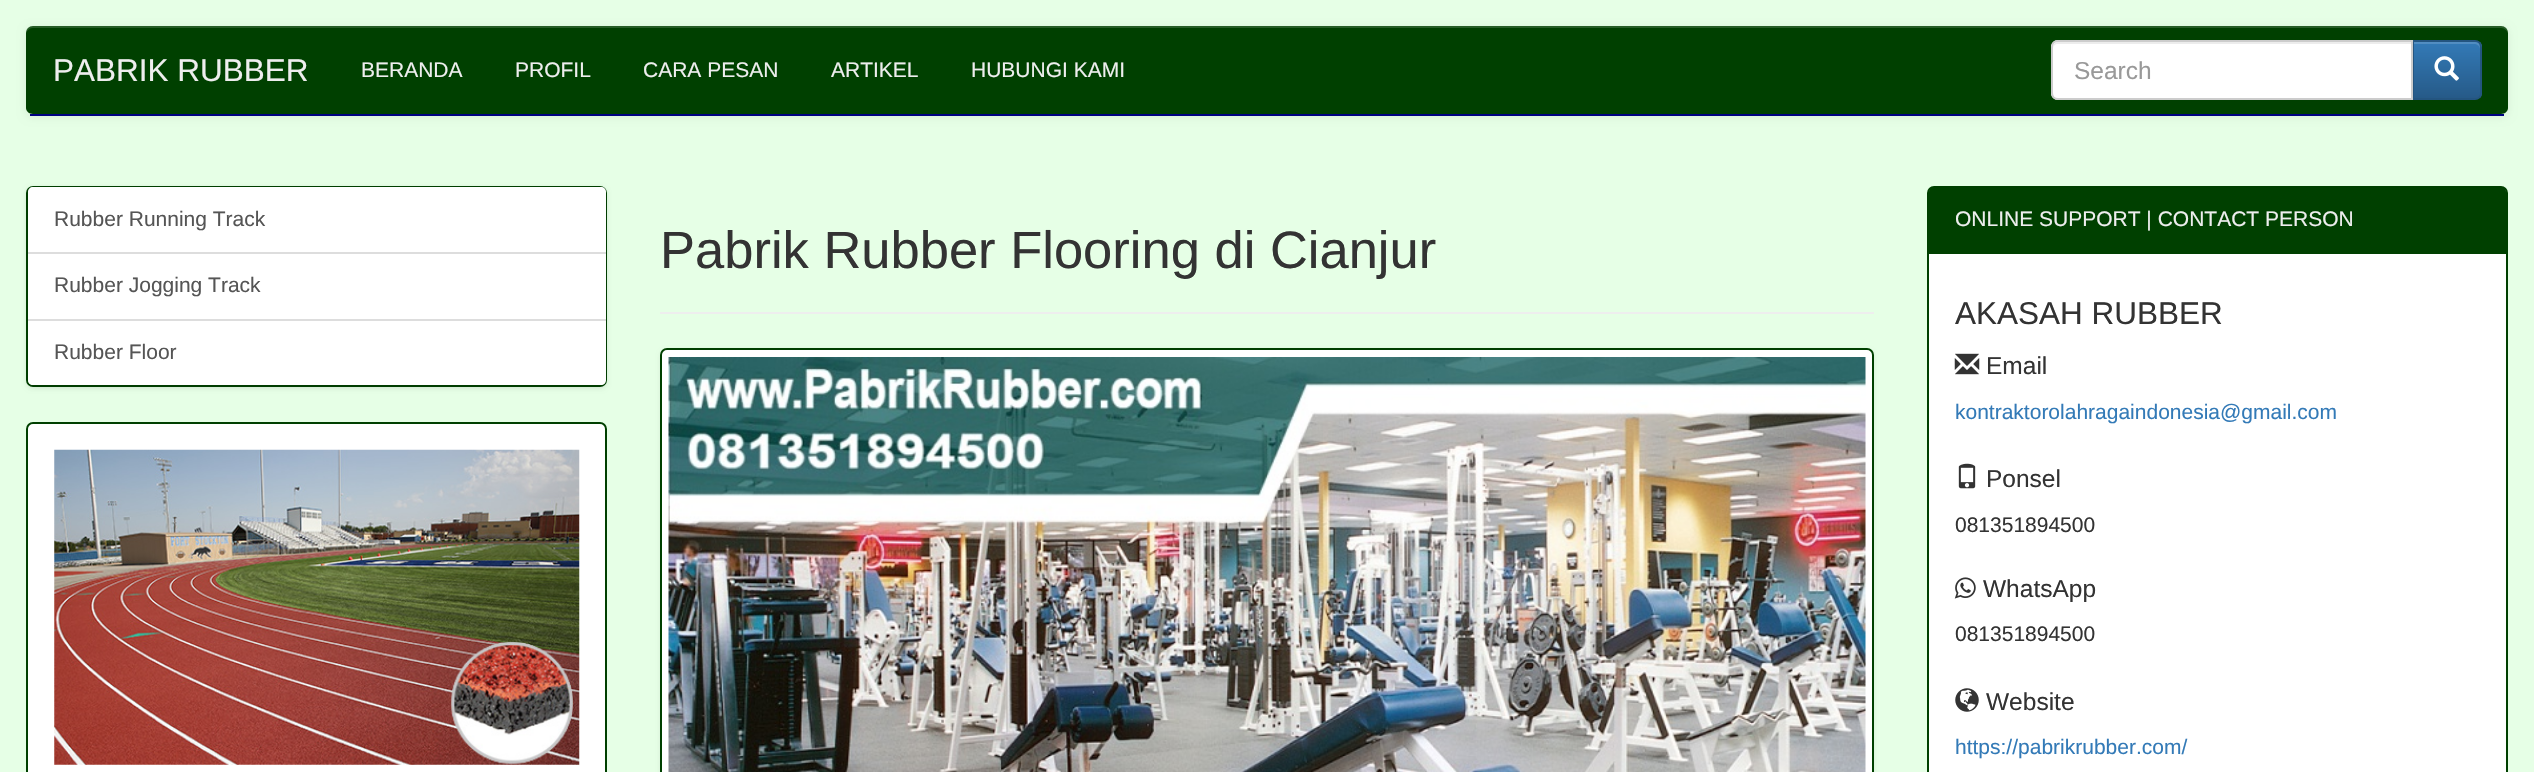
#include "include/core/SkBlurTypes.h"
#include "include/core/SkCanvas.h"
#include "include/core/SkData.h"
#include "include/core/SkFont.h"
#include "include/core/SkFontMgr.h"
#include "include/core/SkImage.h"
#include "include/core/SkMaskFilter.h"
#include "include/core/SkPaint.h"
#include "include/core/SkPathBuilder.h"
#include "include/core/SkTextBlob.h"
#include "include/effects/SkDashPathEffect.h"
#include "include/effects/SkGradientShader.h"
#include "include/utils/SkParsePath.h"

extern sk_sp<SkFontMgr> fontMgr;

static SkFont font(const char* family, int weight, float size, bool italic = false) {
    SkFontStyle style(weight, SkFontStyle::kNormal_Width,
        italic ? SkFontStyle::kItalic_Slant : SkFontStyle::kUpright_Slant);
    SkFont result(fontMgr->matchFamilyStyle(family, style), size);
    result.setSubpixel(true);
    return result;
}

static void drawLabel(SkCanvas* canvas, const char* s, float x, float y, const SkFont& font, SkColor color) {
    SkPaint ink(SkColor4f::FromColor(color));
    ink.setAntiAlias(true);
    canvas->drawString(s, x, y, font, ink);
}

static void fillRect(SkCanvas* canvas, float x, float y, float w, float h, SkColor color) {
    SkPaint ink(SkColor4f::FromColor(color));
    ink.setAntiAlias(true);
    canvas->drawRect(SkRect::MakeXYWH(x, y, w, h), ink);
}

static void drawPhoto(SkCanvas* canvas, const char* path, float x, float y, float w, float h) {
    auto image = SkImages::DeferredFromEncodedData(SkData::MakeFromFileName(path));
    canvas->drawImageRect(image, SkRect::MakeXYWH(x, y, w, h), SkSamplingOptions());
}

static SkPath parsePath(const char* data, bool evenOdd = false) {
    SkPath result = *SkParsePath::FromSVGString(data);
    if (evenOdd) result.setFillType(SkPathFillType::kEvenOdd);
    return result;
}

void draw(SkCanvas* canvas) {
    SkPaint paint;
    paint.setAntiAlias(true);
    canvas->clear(0xFFE6FFE6);
    paint.setColor(0x12000000);
    paint.setMaskFilter(SkMaskFilter::MakeBlur(kNormal_SkBlurStyle, 4.5f));
    canvas->drawRoundRect(SkRect::MakeXYWH(26, 28, 2482, 89), 7, 7, paint);
    paint.setMaskFilter(nullptr);
    paint.setColor(0xFF004000);
    canvas->drawPath(parsePath("M33 26H2501C2505 26 2508 29 2508 33V108C2508 111 2505 114 2501 114H33C29 114 26 111 26 108V33C26 29 29 26 33 26Z"), paint);
    paint.setColor(0x26FFFFFF);
    canvas->drawPath(parsePath("M33 28H2501C2504 28 2507 30 2508 33C2508 29 2505 26 2501 26H33C29 26 26 29 26 33C27 30 30 28 33 28Z"), paint);
    fillRect(canvas, 30, 114, 2474, 2, 0xFF000080);
    SkFont font1 = font("Liberation Sans", 400, 31.5f);
    drawLabel(canvas, "PABRIK RUBBER", 53, 81, font1, 0xFFEEEEEE);
    SkFont font2 = font("Liberation Sans", 400, 21);
    drawLabel(canvas, "BERANDA", 361, 77, font2, 0xFFEEEEEE);
    drawLabel(canvas, "PROFIL", 515, 77, font2, 0xFFEEEEEE);
    drawLabel(canvas, "CARA PESAN", 643, 77, font2, 0xFFEEEEEE);
    drawLabel(canvas, "ARTIKEL", 831, 77, font2, 0xFFEEEEEE);
    drawLabel(canvas, "HUBUNGI KAMI", 971, 77, font2, 0xFFEEEEEE);
    canvas->save();
    canvas->clipPath(parsePath("M2412 40H2475C2479 40 2482 43 2482 47V93C2482 97 2479 100 2475 100H2412Z"), true);
    {
        const SkColor colors[] = {0xFF337AB7, 0xFF265A88};
        const float stops[] = {0, 1};
        const SkPoint ends[] = {{2447, 42}, {2447, 98}};
        paint.setShader(SkGradientShader::MakeLinear(ends, colors, stops, 2, SkTileMode::kClamp));
        paint.setAlpha(255);
    }
    canvas->drawRect(SkRect::MakeXYWH(2414, 42, 68, 56), paint);
    canvas->restore();
    paint.setShader(nullptr);
    paint.setColor(0x26FFFFFF);
    canvas->drawPath(parsePath("M2413 44H2474C2477 44 2480 46 2480 49V47C2480 44 2478 42 2475 42H2413Z"), paint);
    paint.setStroke(true);
    paint.setStrokeWidth(2);
    paint.setColor(0xFF245580);
    canvas->drawPath(parsePath("M2413 41H2475C2478.5 41 2481 43.5 2481 47V93C2481 96.5 2478.5 99 2475 99H2413Z"), paint);
    paint.setStroke(false);
    paint.setColor(0xFFFFFFFF);
    canvas->drawPath(parsePath("M2058 40H2413V100H2058C2054 100 2051 97 2051 93V47C2051 43 2054 40 2058 40Z"), paint);
    paint.setColor(0xFFECECEC);
    canvas->drawPath(parsePath("M2058 44H2412V42H2058C2054 42 2053 46 2053 49C2053 46 2055 44 2058 44Z"), paint);
    paint.setStroke(true);
    paint.setColor(0xFFCCCCCC);
    canvas->drawPath(parsePath("M2058 41H2412V99H2058C2054.5 99 2052 96.5 2052 93V47C2052 43.5 2054.5 41 2058 41Z"), paint);
    SkFont font3 = font("Liberation Sans", 400, 24.5f);
    drawLabel(canvas, "Search", 2074, 79, font3, 0xFF999999);
    drawPhoto(canvas, "assets/img1.png", 2434, 56, 25, 25);
    paint.setStroke(false);
    paint.setColor(0x0D000000);
    paint.setMaskFilter(SkMaskFilter::MakeBlur(kNormal_SkBlurStyle, 2));
    canvas->drawRoundRect(SkRect::MakeXYWH(26, 187, 581, 202), 7, 7, paint);
    paint.setMaskFilter(nullptr);
    paint.setStroke(true);
    paint.setColor(0xFF004000);
    canvas->drawRoundRect(SkRect::MakeXYWH(27, 187, 579, 199), 6, 6, paint);
    paint.setStroke(false);
    paint.setColor(0x12000000);
    paint.setMaskFilter(SkMaskFilter::MakeBlur(kNormal_SkBlurStyle, 2));
    canvas->drawRoundRect(SkRect::MakeXYWH(28, 189, 578, 198), 7, 7, paint);
    paint.setMaskFilter(nullptr);
    paint.setColor(0xFFFFFFFF);
    canvas->drawPath(parsePath("M33 187H601C604 187 606 189 606 192V254H28V192C28 189 30 187 33 187Z"), paint);
    fillRect(canvas, 28, 252, 578, 2, 0xFFDDDDDD);
    drawLabel(canvas, "Rubber Running Track", 54, 226, font2, 0xFF555555);
    fillRect(canvas, 28, 254, 578, 65, 0xFFFFFFFF);
    drawLabel(canvas, "Rubber Jogging Track", 54, 292, font2, 0xFF555555);
    canvas->drawPath(parsePath("M28 319H606V380C606 383 604 385 601 385H33C30 385 28 383 28 380Z"), paint);
    fillRect(canvas, 28, 319, 578, 2, 0xFFDDDDDD);
    drawLabel(canvas, "Rubber Floor", 54, 359, font2, 0xFF555555);
    canvas->drawRoundRect(SkRect::MakeXYWH(27, 423, 579, 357), 6, 6, paint);
    paint.setStroke(true);
    paint.setColor(0xFF004000);
    canvas->drawRoundRect(SkRect::MakeXYWH(27, 423, 579, 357), 6, 6, paint);
    drawPhoto(canvas, "assets/img2.png", 54, 449, 526, 316);
    fillRect(canvas, 660, 312, 1214, 2, 0xFFEEEEEE);
    SkFont font4 = font("Liberation Sans", 400, 52.5f);
    drawLabel(canvas, "Pabrik Rubber Flooring di Cianjur", 660, 268, font4, 0xFF333333);
    paint.setStroke(false);
    paint.setColor(0x12000000);
    paint.setMaskFilter(SkMaskFilter::MakeBlur(kNormal_SkBlurStyle, 2));
    canvas->drawRoundRect(SkRect::MakeXYWH(660, 350, 1214, 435), 7, 7, paint);
    paint.setMaskFilter(nullptr);
    paint.setColor(0xFFFFFFFF);
    canvas->drawRoundRect(SkRect::MakeXYWH(661, 349, 1212, 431), 6, 6, paint);
    paint.setStroke(true);
    paint.setColor(0xFF004000);
    canvas->drawRoundRect(SkRect::MakeXYWH(661, 349, 1212, 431), 6, 6, paint);
    drawPhoto(canvas, "assets/img3.png", 668, 357, 1198, 415);
    paint.setStroke(false);
    paint.setColor(0xFFFFFFFF);
    canvas->drawRoundRect(SkRect::MakeXYWH(1928, 187, 579, 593), 6, 6, paint);
    paint.setStroke(true);
    paint.setColor(0xFF004000);
    canvas->drawRoundRect(SkRect::MakeXYWH(1928, 187, 579, 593), 6, 6, paint);
    paint.setStroke(false);
    canvas->drawPath(parsePath("M1934 187H2501C2504 187 2506 189 2506 192V254H1929V192C1929 189 1931 187 1934 187Z"), paint);
    drawLabel(canvas, "ONLINE SUPPORT | CONTACT PERSON", 1955, 226, font2, 0xFFEEEEEE);
    drawLabel(canvas, "AKASAH RUBBER", 1955, 324, font1, 0xFF333333);
    drawPhoto(canvas, "assets/img4.png", 1954, 353, 26, 22);
    drawLabel(canvas, "Email", 1986, 374, font3, 0xFF333333);
    drawLabel(canvas, "kontraktorolahragaindonesia@gmail.com", 1955, 419, font2, 0xFF337AB7);
    drawPhoto(canvas, "assets/img5.png", 1958, 463, 18, 26);
    drawLabel(canvas, "Ponsel", 1986, 487, font3, 0xFF333333);
    drawLabel(canvas, "081351894500", 1955, 532, font2, 0xFF333333);
    drawPhoto(canvas, "assets/img6.png", 1954, 577, 22, 22);
    drawLabel(canvas, "WhatsApp", 1983, 597, font3, 0xFF333333);
    drawLabel(canvas, "081351894500", 1955, 641, font2, 0xFF333333);
    drawPhoto(canvas, "assets/img7.png", 1955, 688, 24, 24);
    drawLabel(canvas, "Website", 1986, 710, font3, 0xFF333333);
    drawLabel(canvas, "https://pabrikrubber.com/", 1955, 754, font2, 0xFF337AB7);
}
